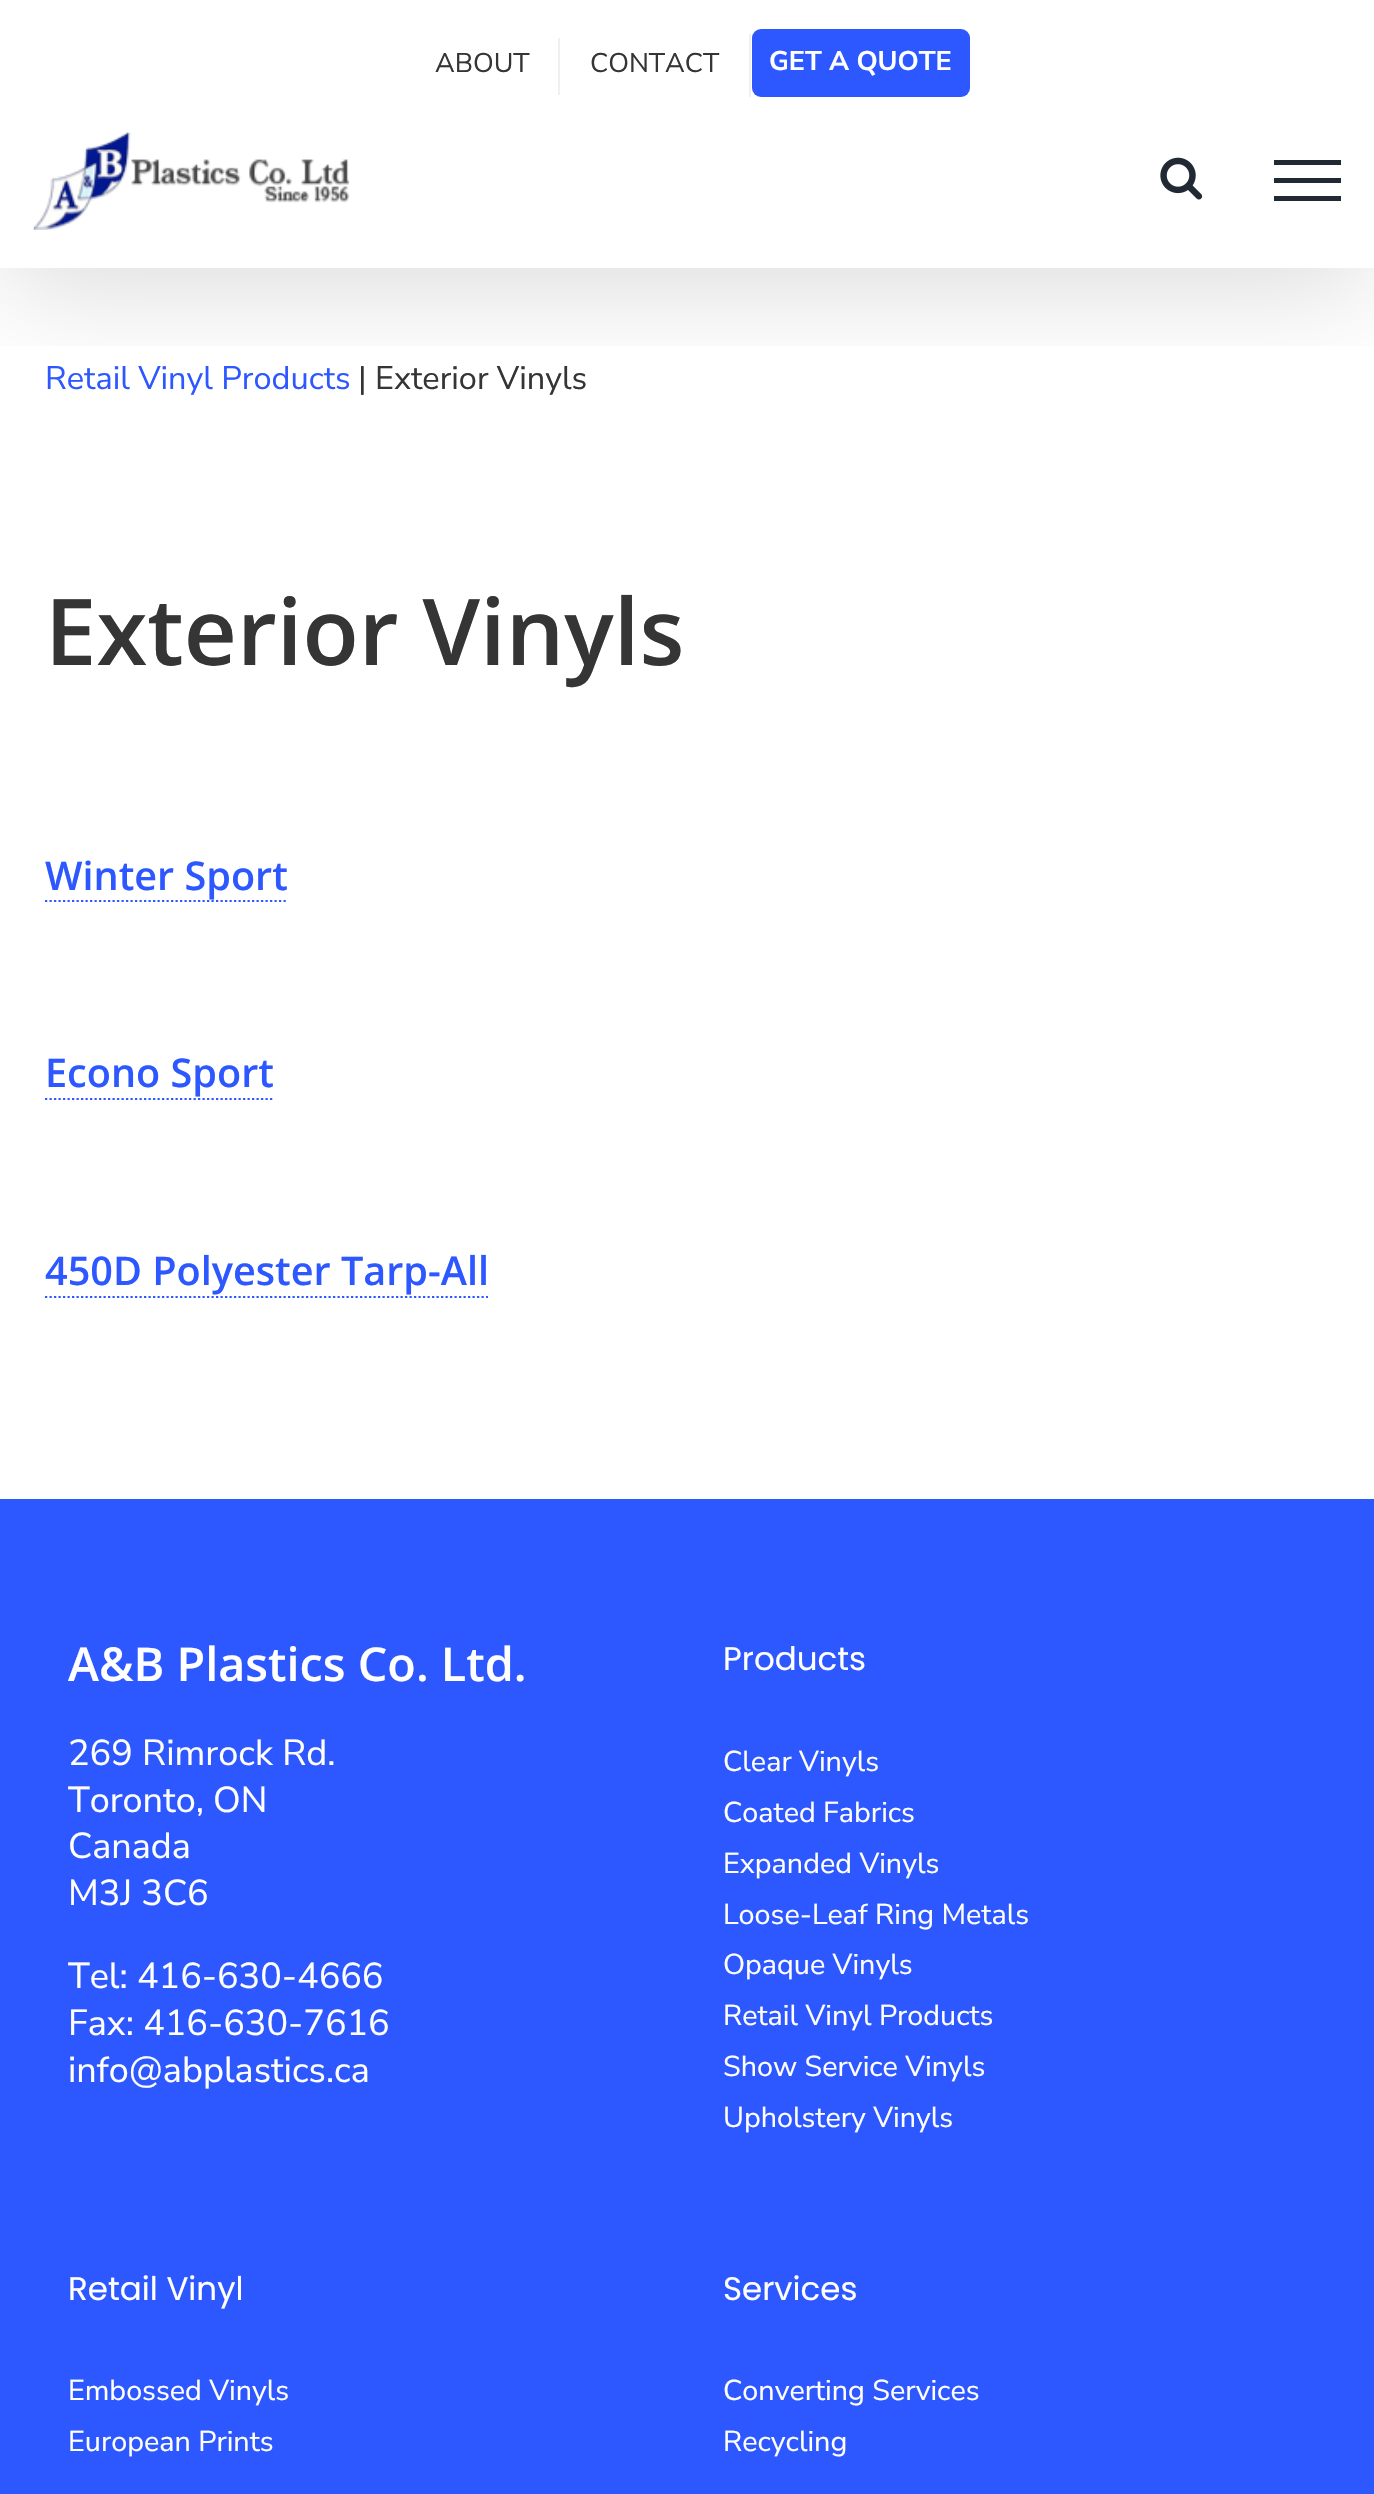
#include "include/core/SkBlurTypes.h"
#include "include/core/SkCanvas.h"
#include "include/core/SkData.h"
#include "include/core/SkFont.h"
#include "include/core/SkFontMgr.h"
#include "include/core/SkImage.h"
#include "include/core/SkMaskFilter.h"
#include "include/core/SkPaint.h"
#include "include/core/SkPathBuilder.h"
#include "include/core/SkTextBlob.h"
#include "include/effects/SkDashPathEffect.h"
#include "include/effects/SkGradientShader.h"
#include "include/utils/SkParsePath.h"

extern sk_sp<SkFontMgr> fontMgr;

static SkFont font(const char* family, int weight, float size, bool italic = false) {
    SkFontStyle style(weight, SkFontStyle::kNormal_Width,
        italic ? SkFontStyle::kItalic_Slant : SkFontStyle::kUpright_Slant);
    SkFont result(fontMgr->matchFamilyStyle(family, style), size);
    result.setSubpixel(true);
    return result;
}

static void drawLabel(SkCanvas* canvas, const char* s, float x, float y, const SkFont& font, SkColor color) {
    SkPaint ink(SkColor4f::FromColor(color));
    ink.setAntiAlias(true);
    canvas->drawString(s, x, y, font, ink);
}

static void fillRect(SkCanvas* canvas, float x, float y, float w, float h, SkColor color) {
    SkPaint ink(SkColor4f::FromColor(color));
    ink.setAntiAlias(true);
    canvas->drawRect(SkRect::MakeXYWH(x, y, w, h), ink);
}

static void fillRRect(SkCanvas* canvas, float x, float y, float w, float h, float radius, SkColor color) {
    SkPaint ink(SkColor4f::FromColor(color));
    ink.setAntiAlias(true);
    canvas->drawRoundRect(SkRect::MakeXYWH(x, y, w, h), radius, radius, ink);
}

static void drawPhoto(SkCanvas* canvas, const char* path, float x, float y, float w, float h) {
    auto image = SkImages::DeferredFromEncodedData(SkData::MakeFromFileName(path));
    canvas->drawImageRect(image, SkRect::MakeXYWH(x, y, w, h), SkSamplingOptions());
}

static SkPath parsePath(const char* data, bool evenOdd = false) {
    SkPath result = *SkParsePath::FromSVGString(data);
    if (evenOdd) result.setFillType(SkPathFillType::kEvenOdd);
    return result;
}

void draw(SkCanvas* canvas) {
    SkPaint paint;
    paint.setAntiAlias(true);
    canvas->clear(0xFFFFFFFF);
    canvas->save();
    canvas->clipRect(SkRect::MakeXYWH(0, 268, 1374, 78));
    paint.setColor(0x24000000);
    paint.setMaskFilter(SkMaskFilter::MakeBlur(kNormal_SkBlurStyle, 56));
    canvas->drawRect(SkRect::MakeXYWH(5, 27, 1365, 259), paint);
    paint.setMaskFilter(nullptr);
    canvas->restore();
    SkFont font1 = font("Nunito Sans", 200, 27);
    drawLabel(canvas, "ABOUT", 435, 72, font1, 0xFF353535);
    fillRect(canvas, 558, 38, 2, 57, 0xFFF0F0F0);
    drawLabel(canvas, "CONTACT", 590, 72, font1, 0xFF353535);
    fillRect(canvas, 749, 34, 2, 63, 0xFFF0F0F0);
    fillRRect(canvas, 752, 29, 218, 68, 9, 0xFF2E58FF);
    SkFont font2 = font("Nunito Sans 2", 200, 27);
    drawLabel(canvas, "GET A QUOTE", 769, 70, font2, 0xFFFFFFFF);
    drawPhoto(canvas, "assets/img1.png", 33, 132, 317, 98);
    drawPhoto(canvas, "assets/img2.png", 1160, 157, 43, 43);
    fillRect(canvas, 1274, 160, 67, 5, 0xFF212934);
    fillRect(canvas, 1274, 178, 67, 5, 0xFF212934);
    fillRect(canvas, 1274, 196, 67, 5, 0xFF212934);
    fillRect(canvas, 0, 267, 1374, 1, 0xFFFFFFFF);
    SkFont font3 = font("Nunito Sans", 200, 32.5f);
    drawLabel(canvas, "Retail Vinyl Products", 45, 389, font3, 0xFF2E58FF);
    drawLabel(canvas, "| Exterior Vinyls", 358, 389, font3, 0xFF353535);
    SkFont font4 = font("Open Sans", 600, 92.25f);
    drawLabel(canvas, "Exterior Vinyls", 45, 665, font4, 0xFF353535);
    paint.setStroke(true);
    paint.setStrokeWidth(2.2f);
    paint.setColor(0xFF2E58FF);
    paint.setPathEffect(SkDashPathEffect::Make({{2.25f, 2.25f}}, 0));
    canvas->drawPath(parsePath("M45 901H288"), paint);
    paint.setPathEffect(nullptr);
    SkFont font5 = font("Open Sans", 600, 39.6f);
    drawLabel(canvas, "Winter Sport", 45, 890, font5, 0xFF2E58FF);
    drawLabel(canvas, "Econo Sport", 45, 1087, font5, 0xFF2E58FF);
    paint.setPathEffect(SkDashPathEffect::Make({{2.25f, 2.25f}}, 0));
    canvas->drawPath(parsePath("M45 1099H274.5"), paint);
    paint.setPathEffect(nullptr);
    drawLabel(canvas, "450D Polyester Tarp-All", 45, 1285, font5, 0xFF2E58FF);
    paint.setPathEffect(SkDashPathEffect::Make({{2.25f, 2.25f}}, 0));
    canvas->drawPath(parsePath("M45 1297H488"), paint);
    paint.setPathEffect(nullptr);
    fillRect(canvas, 0, 1499, 1374, 995, 0xFF2E58FF);
    SkFont font6 = font("Open Sans", 600, 46.75f);
    drawLabel(canvas, "A&B Plastics Co. Ltd.", 68, 1681, font6, 0xFFFFFFFF);
    SkFont font7 = font("Nunito Sans", 200, 36);
    drawLabel(canvas, "269 Rimrock Rd.", 68, 1765, font7, 0xFFFFFFFF);
    drawLabel(canvas, "Toronto, ON", 68, 1812, font7, 0xFFFFFFFF);
    drawLabel(canvas, "Canada", 68, 1858, font7, 0xFFFFFFFF);
    drawLabel(canvas, "M3J 3C6", 68, 1905, font7, 0xFFFFFFFF);
    drawLabel(canvas, "Tel: 416-630-4666", 68, 1988, font7, 0xFFFFFFFF);
    drawLabel(canvas, "Fax: 416-630-7616", 68, 2035, font7, 0xFFFFFFFF);
    drawLabel(canvas, "info@abplastics.ca", 68, 2082, font7, 0xFFFFFFFF);
    SkFont font8 = font("Poppins", 400, 32.5f);
    drawLabel(canvas, "Products", 723, 1670, font8, 0xFFFFFFFF);
    SkFont font9 = font("Nunito Sans", 200, 28.75f);
    drawLabel(canvas, "Clear Vinyls", 723, 1771, font9, 0xFFFFFFFF);
    drawLabel(canvas, "Coated Fabrics", 723, 1822, font9, 0xFFFFFFFF);
    drawLabel(canvas, "Expanded Vinyls", 723, 1873, font9, 0xFFFFFFFF);
    drawLabel(canvas, "Loose-Leaf Ring Metals", 723, 1924, font9, 0xFFFFFFFF);
    drawLabel(canvas, "Opaque Vinyls", 723, 1974, font9, 0xFFFFFFFF);
    drawLabel(canvas, "Retail Vinyl Products", 723, 2025, font9, 0xFFFFFFFF);
    drawLabel(canvas, "Show Service Vinyls", 723, 2076, font9, 0xFFFFFFFF);
    drawLabel(canvas, "Upholstery Vinyls", 723, 2127, font9, 0xFFFFFFFF);
    drawLabel(canvas, "Retail Vinyl", 68, 2300, font8, 0xFFFFFFFF);
    drawLabel(canvas, "Embossed Vinyls", 68, 2400, font9, 0xFFFFFFFF);
    drawLabel(canvas, "European Prints", 68, 2451, font9, 0xFFFFFFFF);
    drawLabel(canvas, "Services", 723, 2300, font8, 0xFFFFFFFF);
    drawLabel(canvas, "Converting Services", 723, 2400, font9, 0xFFFFFFFF);
    drawLabel(canvas, "Recycling", 723, 2451, font9, 0xFFFFFFFF);
}
